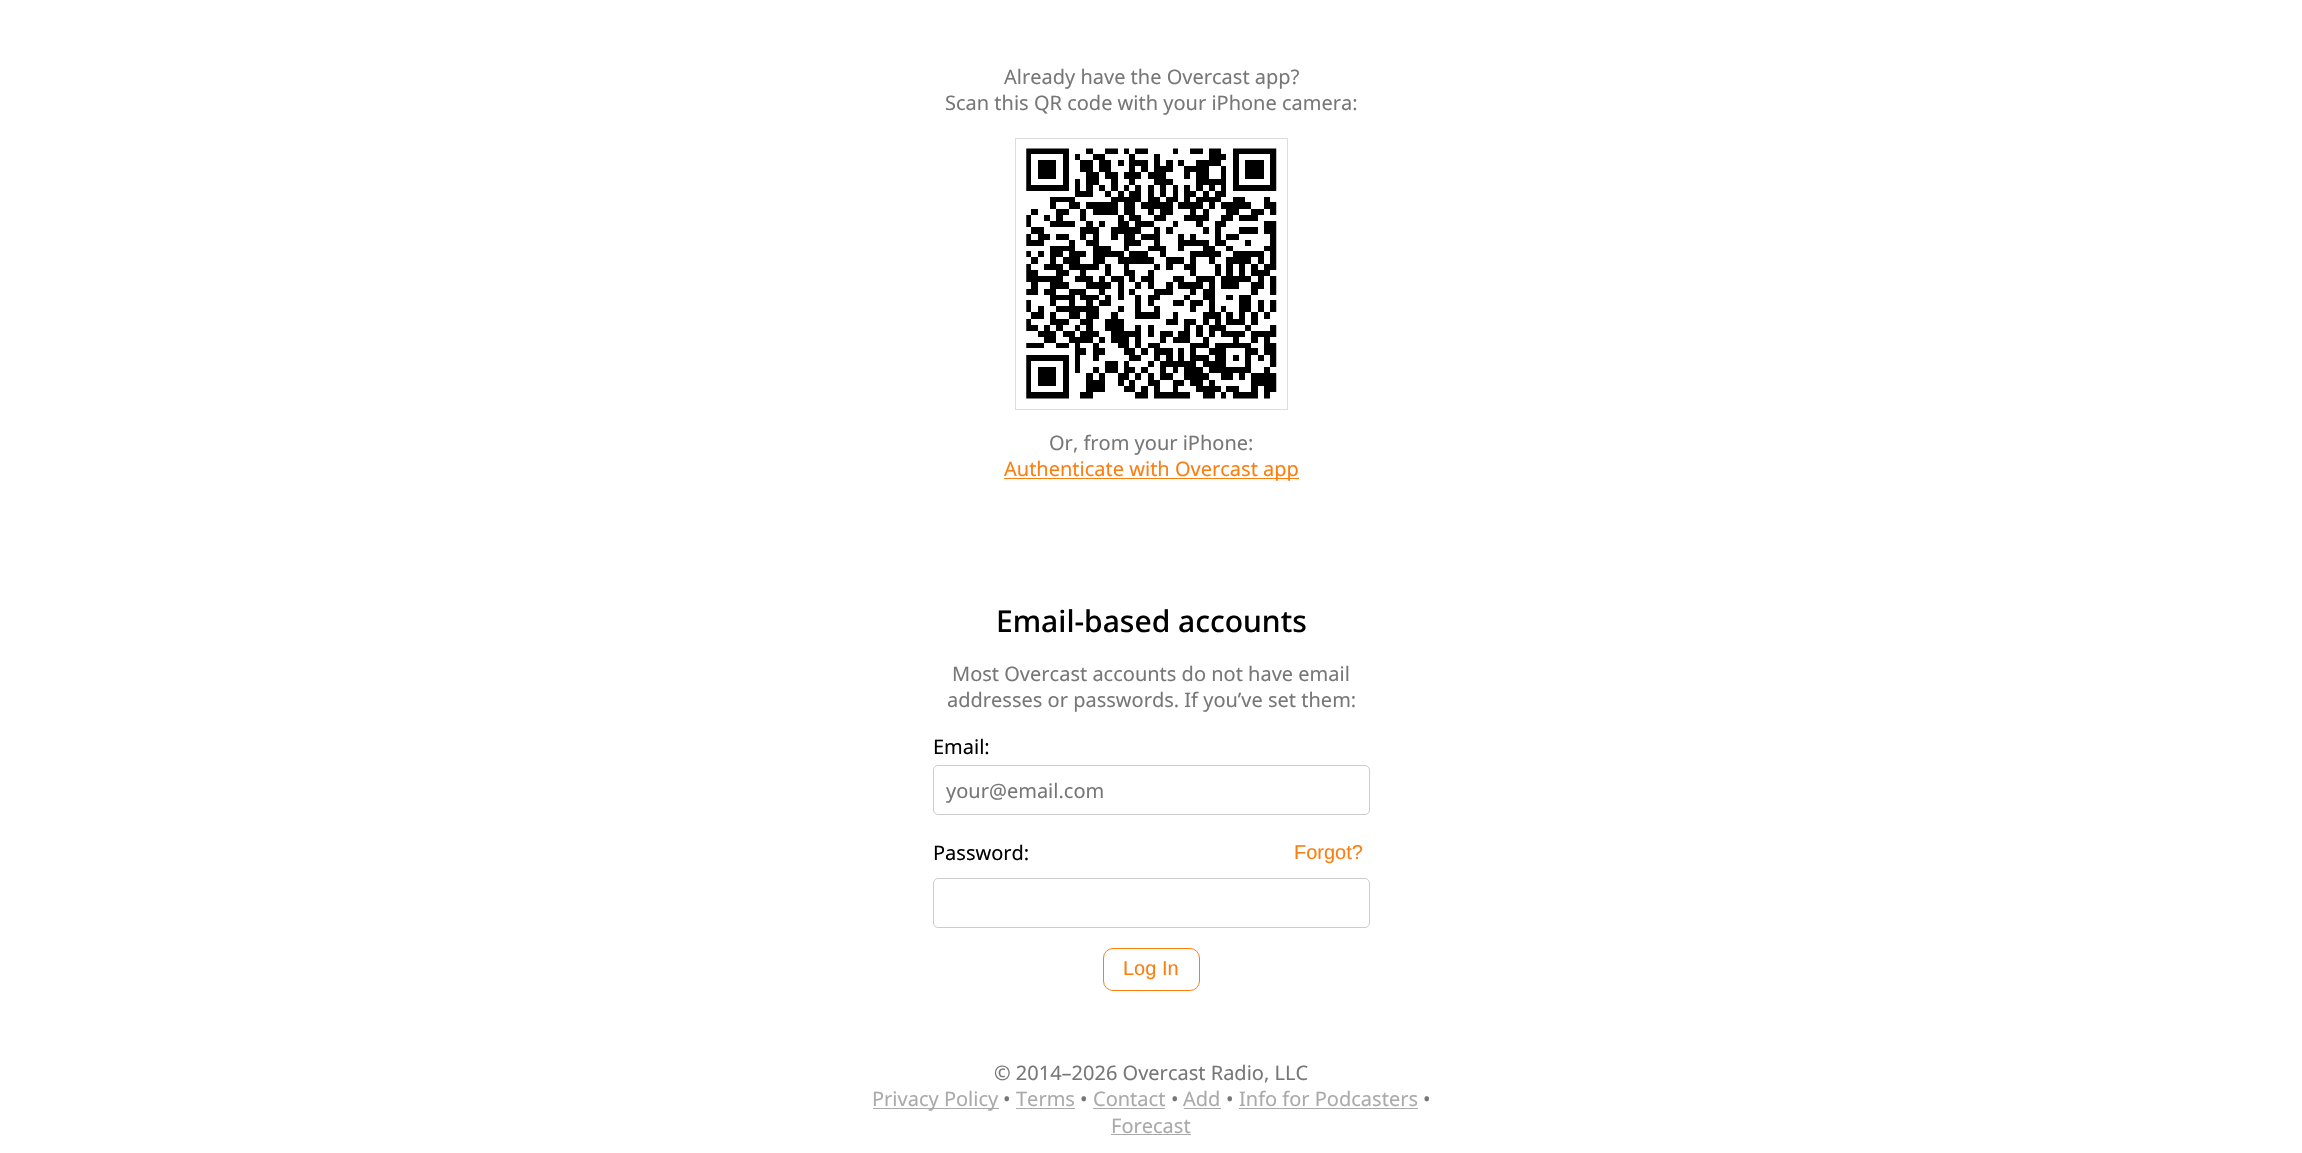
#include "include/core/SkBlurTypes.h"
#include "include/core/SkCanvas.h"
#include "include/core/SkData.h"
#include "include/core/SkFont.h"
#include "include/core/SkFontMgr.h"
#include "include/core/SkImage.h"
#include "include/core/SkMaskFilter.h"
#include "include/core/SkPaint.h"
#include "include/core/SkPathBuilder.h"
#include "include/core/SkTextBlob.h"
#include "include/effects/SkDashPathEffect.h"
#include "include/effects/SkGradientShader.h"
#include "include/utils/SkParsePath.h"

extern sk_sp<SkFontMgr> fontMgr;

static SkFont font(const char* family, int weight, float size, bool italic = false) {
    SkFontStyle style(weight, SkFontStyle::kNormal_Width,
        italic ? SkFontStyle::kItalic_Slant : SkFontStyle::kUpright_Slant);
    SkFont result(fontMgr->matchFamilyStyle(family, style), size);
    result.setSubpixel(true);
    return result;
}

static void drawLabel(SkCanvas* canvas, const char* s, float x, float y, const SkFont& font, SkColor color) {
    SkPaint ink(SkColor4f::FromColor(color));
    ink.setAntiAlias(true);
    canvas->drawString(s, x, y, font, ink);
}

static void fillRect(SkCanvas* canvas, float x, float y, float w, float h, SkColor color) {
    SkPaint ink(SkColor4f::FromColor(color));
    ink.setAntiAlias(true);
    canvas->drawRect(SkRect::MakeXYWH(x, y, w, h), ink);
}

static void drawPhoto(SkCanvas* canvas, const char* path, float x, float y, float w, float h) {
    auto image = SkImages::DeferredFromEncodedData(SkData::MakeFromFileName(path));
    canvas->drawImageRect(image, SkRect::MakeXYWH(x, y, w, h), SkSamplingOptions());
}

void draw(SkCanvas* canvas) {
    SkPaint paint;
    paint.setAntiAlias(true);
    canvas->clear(0xFFFFFFFF);
    SkFont font1 = font("Noto Sans", 400, 20);
    drawLabel(canvas, "Already have the Overcast app?", 1004, 84, font1, 0xFF777777);
    drawLabel(canvas, "Scan this QR code with your iPhone camera:", 945, 110, font1, 0xFF777777);
    paint.setStroke(true);
    paint.setStrokeWidth(1);
    paint.setColor(0xFFDDDDDD);
    canvas->drawRect(SkRect::MakeXYWH(1015.5f, 138.5f, 272, 271), paint);
    drawPhoto(canvas, "assets/img1.png", 1026, 148, 251, 251);
    drawLabel(canvas, "Or, from your iPhone:", 1049, 450, font1, 0xFF777777);
    fillRect(canvas, 1004, 478, 295, 1, 0xFFFC7E0F);
    drawLabel(canvas, "Authenticate with Overcast app", 1004, 476, font1, 0xFFFC7E0F);
    SkFont font2 = font("Noto Sans", 500, 30);
    drawLabel(canvas, "Email-based accounts", 996, 632, font2, 0xFF000000);
    drawLabel(canvas, "Most Overcast accounts do not have email", 952, 681, font1, 0xFF777777);
    drawLabel(canvas, "addresses or passwords. If you’ve set them:", 947, 707, font1, 0xFF777777);
    drawLabel(canvas, "Email:", 933, 754, font1, 0xFF000000);
    paint.setColor(0xFFCCCCCC);
    canvas->drawRoundRect(SkRect::MakeXYWH(933.5f, 765.5f, 436, 49), 4.5f, 4.5f, paint);
    drawLabel(canvas, "your@email.com", 946, 798, font1, 0xFF777777);
    drawLabel(canvas, "Password:", 933, 860, font1, 0xFF000000);
    SkFont font3 = font("Liberation Sans", 400, 20);
    drawLabel(canvas, "Forgot?", 1294, 859, font3, 0xFFFC7E0F);
    canvas->drawRoundRect(SkRect::MakeXYWH(933.5f, 878.5f, 436, 49), 4.5f, 4.5f, paint);
    paint.setColor(0xFFFC7E0F);
    canvas->drawRoundRect(SkRect::MakeXYWH(1103.5f, 948.5f, 96, 42), 9.5f, 9.5f, paint);
    drawLabel(canvas, "Log In", 1123, 975, font3, 0xFFFC7E0F);
    drawLabel(canvas, "© 2014–2026 Overcast Radio, LLC", 994, 1080, font1, 0xFF777777);
    fillRect(canvas, 873, 1108, 126, 1, 0xFFAAAAAA);
    drawLabel(canvas, "Privacy Policy", 872, 1106, font1, 0xFFAAAAAA);
    drawLabel(canvas, "•", 1003, 1106, font1, 0xFF777777);
    drawLabel(canvas, "Terms", 1016, 1106, font1, 0xFFAAAAAA);
    fillRect(canvas, 1016, 1108, 59, 1, 0xFFAAAAAA);
    drawLabel(canvas, "•", 1080, 1106, font1, 0xFF777777);
    drawLabel(canvas, "Contact", 1093, 1106, font1, 0xFFAAAAAA);
    fillRect(canvas, 1093, 1108, 72, 1, 0xFFAAAAAA);
    drawLabel(canvas, "•", 1171, 1106, font1, 0xFF777777);
    drawLabel(canvas, "Add", 1183, 1106, font1, 0xFFAAAAAA);
    fillRect(canvas, 1184, 1108, 37, 1, 0xFFAAAAAA);
    drawLabel(canvas, "•", 1226, 1106, font1, 0xFF777777);
    drawLabel(canvas, "Info for Podcasters", 1239, 1106, font1, 0xFFAAAAAA);
    fillRect(canvas, 1239, 1108, 179, 1, 0xFFAAAAAA);
    drawLabel(canvas, "•", 1423, 1106, font1, 0xFF777777);
    drawLabel(canvas, "Forecast", 1111, 1133, font1, 0xFFAAAAAA);
    fillRect(canvas, 1111, 1134, 80, 1, 0xFFAAAAAA);
}
